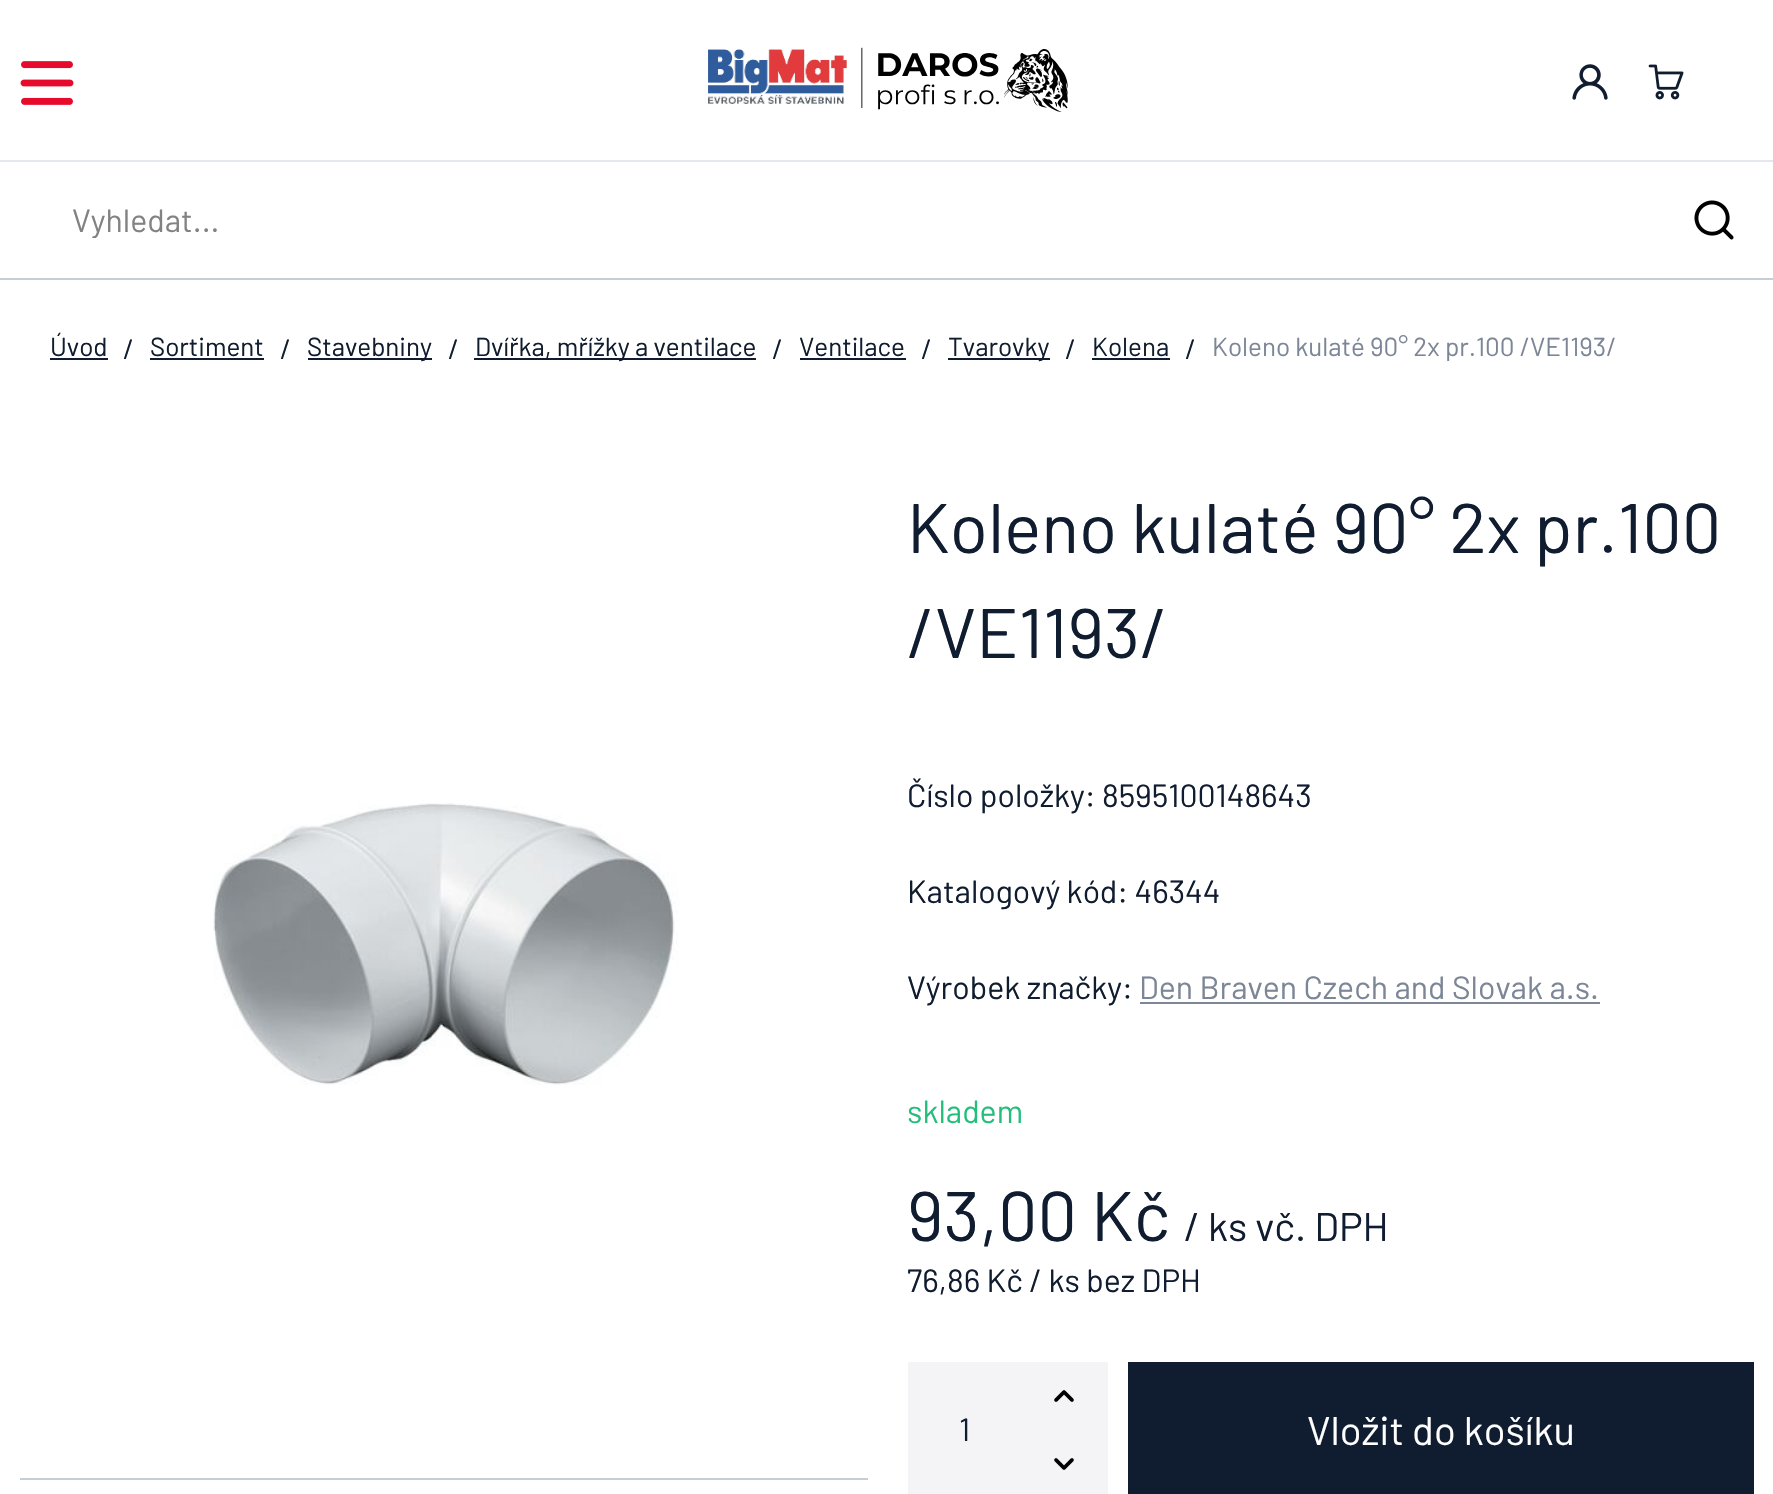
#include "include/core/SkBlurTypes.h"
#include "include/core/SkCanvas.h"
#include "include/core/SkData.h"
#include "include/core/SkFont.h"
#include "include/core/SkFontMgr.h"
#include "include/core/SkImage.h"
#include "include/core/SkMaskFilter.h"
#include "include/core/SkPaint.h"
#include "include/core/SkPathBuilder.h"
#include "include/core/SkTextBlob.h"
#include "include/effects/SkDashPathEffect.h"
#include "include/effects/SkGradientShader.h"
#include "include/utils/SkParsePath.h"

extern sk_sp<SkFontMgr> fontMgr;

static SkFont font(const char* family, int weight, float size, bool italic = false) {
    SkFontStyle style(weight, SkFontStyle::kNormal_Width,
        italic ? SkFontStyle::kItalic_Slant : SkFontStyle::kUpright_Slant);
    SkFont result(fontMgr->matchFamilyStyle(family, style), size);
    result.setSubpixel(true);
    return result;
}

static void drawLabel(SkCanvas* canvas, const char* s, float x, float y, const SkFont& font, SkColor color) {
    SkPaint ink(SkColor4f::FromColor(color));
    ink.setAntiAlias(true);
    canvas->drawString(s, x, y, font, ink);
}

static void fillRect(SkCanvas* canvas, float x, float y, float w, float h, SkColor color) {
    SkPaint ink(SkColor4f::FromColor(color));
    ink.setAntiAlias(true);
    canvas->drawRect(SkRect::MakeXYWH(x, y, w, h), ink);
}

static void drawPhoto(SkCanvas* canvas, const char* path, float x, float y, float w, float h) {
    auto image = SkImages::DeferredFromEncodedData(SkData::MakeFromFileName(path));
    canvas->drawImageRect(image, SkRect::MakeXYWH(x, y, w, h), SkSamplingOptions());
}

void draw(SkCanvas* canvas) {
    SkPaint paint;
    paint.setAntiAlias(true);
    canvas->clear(0xFFFFFFFF);
    drawPhoto(canvas, "assets/img1.png", 20, 61, 54, 44);
    drawPhoto(canvas, "assets/img2.png", 708, 47, 360, 65);
    drawPhoto(canvas, "assets/img3.png", 1572, 64, 36, 36);
    drawPhoto(canvas, "assets/img4.png", 1648, 64, 36, 36);
    fillRect(canvas, 0, 160, 1773, 2, 0xFFE4E8EE);
    canvas->save();
    canvas->clipRect(SkRect::MakeXYWH(72, 200, 1590, 38));
    SkFont font1 = font("Barlow", 400, 32);
    drawLabel(canvas, "Vyhledat...", 72, 232, font1, 0xFF828282);
    canvas->restore();
    drawPhoto(canvas, "assets/img5.png", 1694, 200, 40, 40);
    fillRect(canvas, 0, 278, 1773, 2, 0xFFC6CCD8);
    SkFont font2 = font("Barlow", 400, 26);
    drawLabel(canvas, "Úvod", 50, 356, font2, 0xFF101C2F);
    fillRect(canvas, 50, 358, 58, 2, 0xFF101C2F);
    SkFont font3 = font("Barlow", 400, 28);
    drawLabel(canvas, "/", 123, 359, font3, 0xFF101C2F);
    drawLabel(canvas, "Sortiment", 150, 356, font2, 0xFF101C2F);
    fillRect(canvas, 150, 358, 114, 2, 0xFF101C2F);
    drawLabel(canvas, "/", 280, 359, font3, 0xFF101C2F);
    fillRect(canvas, 308, 358, 124, 2, 0xFF101C2F);
    drawLabel(canvas, "Stavebniny", 307, 356, font2, 0xFF101C2F);
    drawLabel(canvas, "/", 448, 359, font3, 0xFF101C2F);
    fillRect(canvas, 474, 358, 282, 2, 0xFF101C2F);
    drawLabel(canvas, "Dvířka, mřížky a ventilace", 475, 356, font2, 0xFF101C2F);
    drawLabel(canvas, "/", 772, 359, font3, 0xFF101C2F);
    drawLabel(canvas, "Ventilace", 799, 356, font2, 0xFF101C2F);
    fillRect(canvas, 800, 358, 106, 2, 0xFF101C2F);
    drawLabel(canvas, "/", 921, 359, font3, 0xFF101C2F);
    fillRect(canvas, 948, 358, 102, 2, 0xFF101C2F);
    drawLabel(canvas, "Tvarovky", 948, 356, font2, 0xFF101C2F);
    drawLabel(canvas, "/", 1065, 359, font3, 0xFF101C2F);
    drawLabel(canvas, "Kolena", 1092, 356, font2, 0xFF101C2F);
    fillRect(canvas, 1092, 358, 78, 2, 0xFF101C2F);
    drawLabel(canvas, "/", 1185, 359, font3, 0xFF101C2F);
    drawLabel(canvas, "Koleno kulaté 90° 2x pr.100 /VE1193/", 1212, 356, font2, 0xFF7C8696);
    drawPhoto(canvas, "assets/img6.png", 213, 803, 466, 282);
    fillRect(canvas, 20, 1478, 848, 2, 0xFFC6CCD8);
    SkFont font4 = font("Barlow", 400, 70);
    drawLabel(canvas, "Koleno kulaté 90° 2x pr.100", 907, 553, font4, 0xFF101C2F);
    drawLabel(canvas, "/VE1193/", 907, 658, font4, 0xFF101C2F);
    drawLabel(canvas, "Číslo položky: 8595100148643", 907, 807, font1, 0xFF101C2F);
    drawLabel(canvas, "Katalogový kód: 46344", 907, 903, font1, 0xFF101C2F);
    drawLabel(canvas, "Výrobek značky:", 907, 999, font1, 0xFF101C2F);
    drawLabel(canvas, "Den Braven Czech and Slovak a.s.", 1139, 999, font1, 0xFF7C8696);
    fillRect(canvas, 1140, 1002, 460, 2, 0xFF7C8696);
    drawLabel(canvas, "skladem", 907, 1123, font1, 0xFF23BE7C);
    drawLabel(canvas, "93,00 Kč", 907, 1241, font4, 0xFF101C2F);
    SkFont font5 = font("Barlow", 400, 40);
    drawLabel(canvas, "/ ks vč. DPH", 1184, 1241, font5, 0xFF101C2F);
    drawLabel(canvas, "76,86 Kč / ks bez DPH", 907, 1292, font1, 0xFF101C2F);
    fillRect(canvas, 908, 1362, 200, 132, 0xFFF4F4F7);
    drawLabel(canvas, "1", 959, 1441, font1, 0xFF101C2F);
    drawPhoto(canvas, "assets/img7.png", 1054, 1390, 20, 12);
    drawPhoto(canvas, "assets/img8.png", 1054, 1458, 20, 12);
    fillRect(canvas, 1128, 1362, 626, 132, 0xFF101C2F);
    drawLabel(canvas, "Vložit do košíku", 1307, 1445, font5, 0xFFFFFFFF);
}
